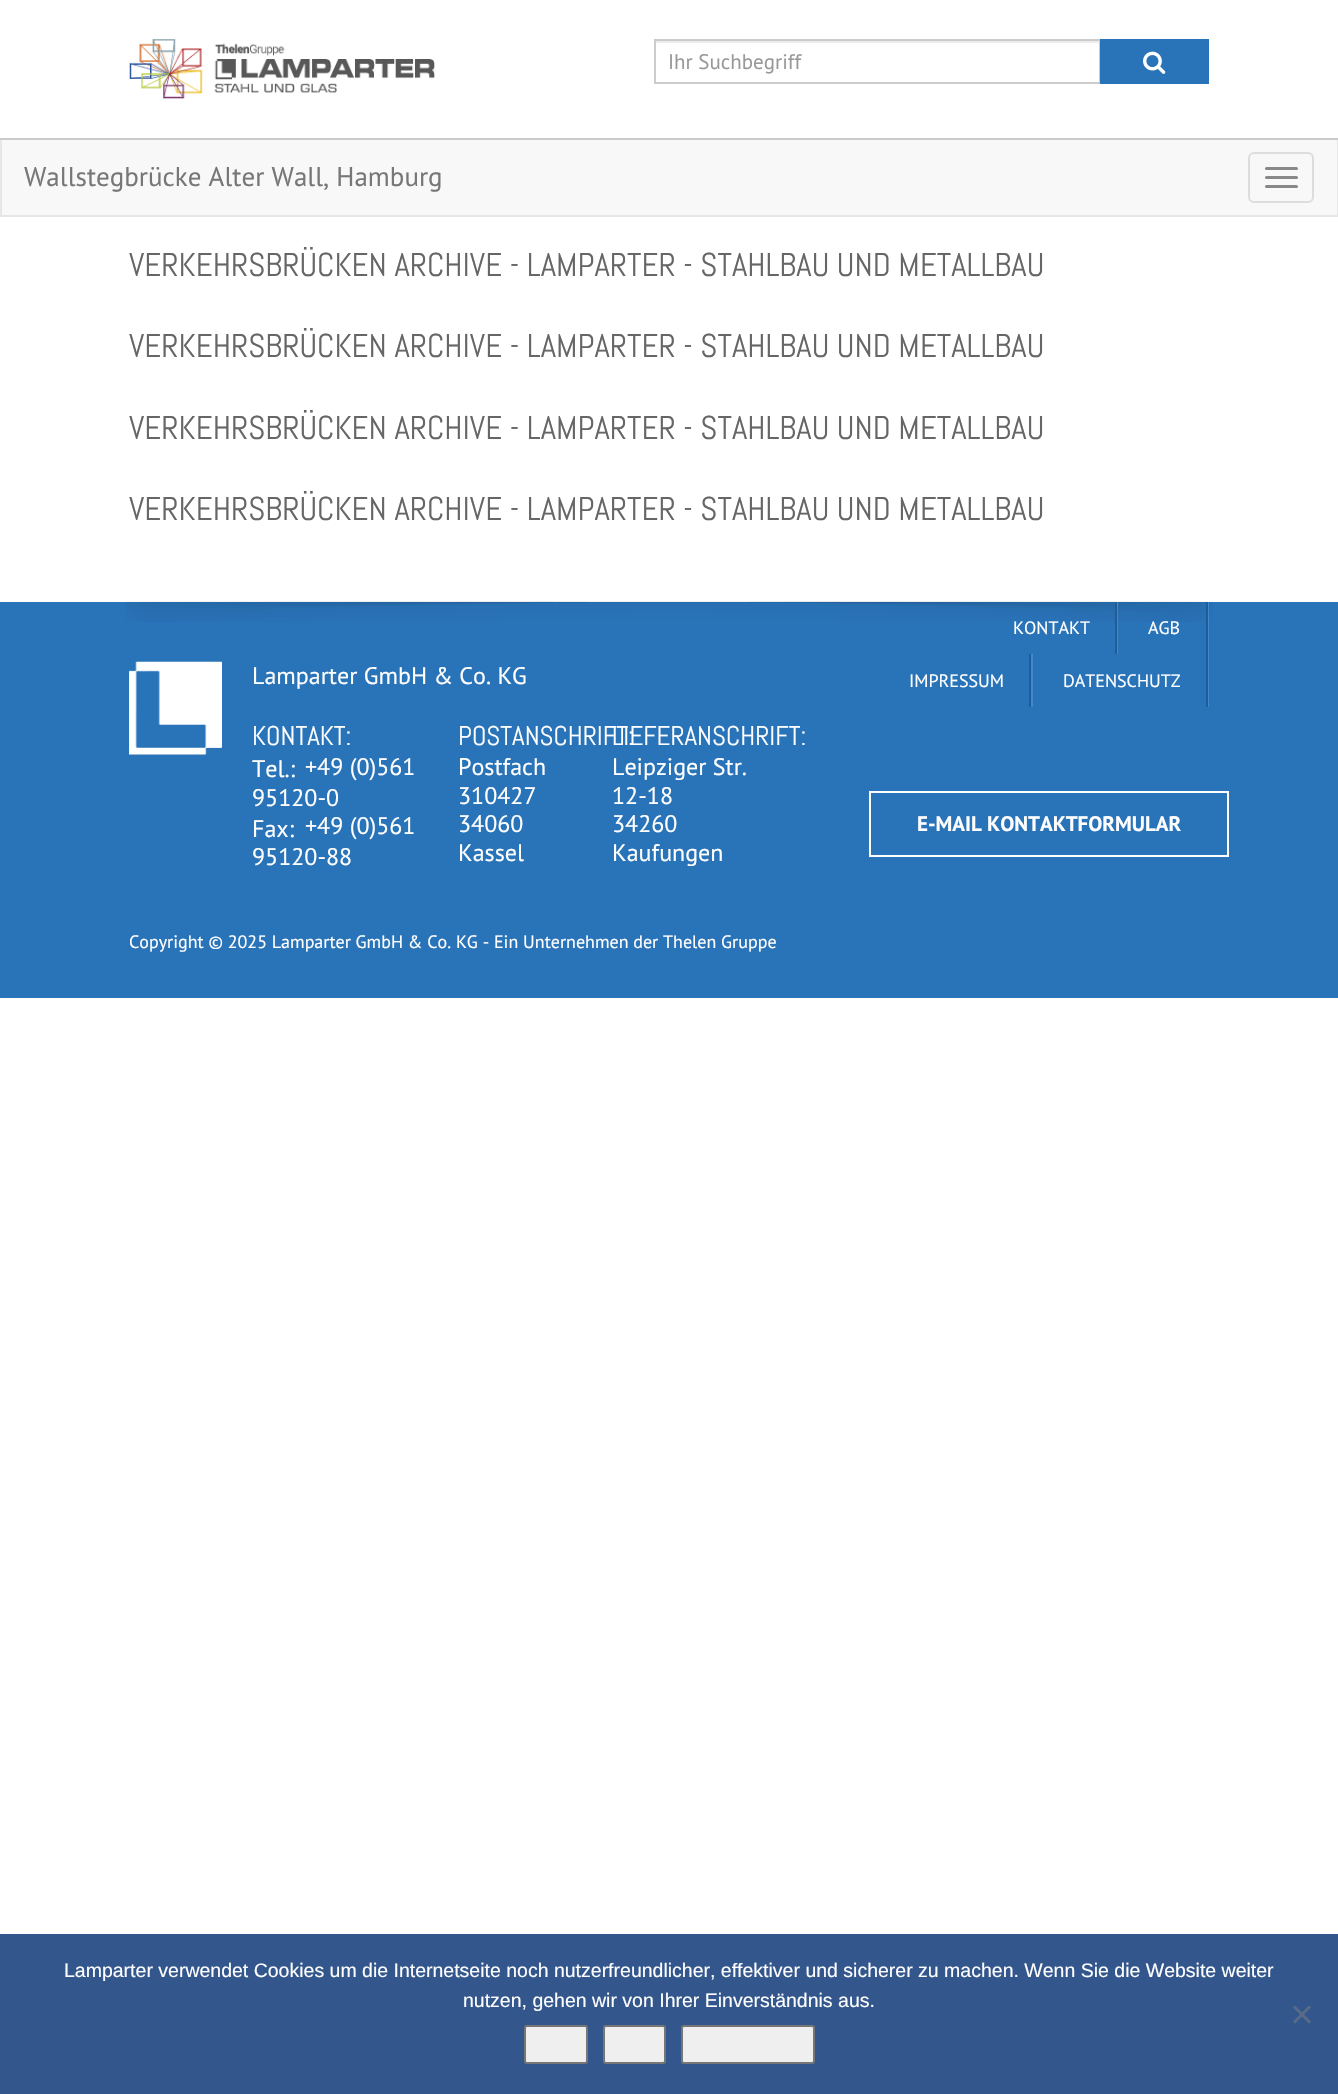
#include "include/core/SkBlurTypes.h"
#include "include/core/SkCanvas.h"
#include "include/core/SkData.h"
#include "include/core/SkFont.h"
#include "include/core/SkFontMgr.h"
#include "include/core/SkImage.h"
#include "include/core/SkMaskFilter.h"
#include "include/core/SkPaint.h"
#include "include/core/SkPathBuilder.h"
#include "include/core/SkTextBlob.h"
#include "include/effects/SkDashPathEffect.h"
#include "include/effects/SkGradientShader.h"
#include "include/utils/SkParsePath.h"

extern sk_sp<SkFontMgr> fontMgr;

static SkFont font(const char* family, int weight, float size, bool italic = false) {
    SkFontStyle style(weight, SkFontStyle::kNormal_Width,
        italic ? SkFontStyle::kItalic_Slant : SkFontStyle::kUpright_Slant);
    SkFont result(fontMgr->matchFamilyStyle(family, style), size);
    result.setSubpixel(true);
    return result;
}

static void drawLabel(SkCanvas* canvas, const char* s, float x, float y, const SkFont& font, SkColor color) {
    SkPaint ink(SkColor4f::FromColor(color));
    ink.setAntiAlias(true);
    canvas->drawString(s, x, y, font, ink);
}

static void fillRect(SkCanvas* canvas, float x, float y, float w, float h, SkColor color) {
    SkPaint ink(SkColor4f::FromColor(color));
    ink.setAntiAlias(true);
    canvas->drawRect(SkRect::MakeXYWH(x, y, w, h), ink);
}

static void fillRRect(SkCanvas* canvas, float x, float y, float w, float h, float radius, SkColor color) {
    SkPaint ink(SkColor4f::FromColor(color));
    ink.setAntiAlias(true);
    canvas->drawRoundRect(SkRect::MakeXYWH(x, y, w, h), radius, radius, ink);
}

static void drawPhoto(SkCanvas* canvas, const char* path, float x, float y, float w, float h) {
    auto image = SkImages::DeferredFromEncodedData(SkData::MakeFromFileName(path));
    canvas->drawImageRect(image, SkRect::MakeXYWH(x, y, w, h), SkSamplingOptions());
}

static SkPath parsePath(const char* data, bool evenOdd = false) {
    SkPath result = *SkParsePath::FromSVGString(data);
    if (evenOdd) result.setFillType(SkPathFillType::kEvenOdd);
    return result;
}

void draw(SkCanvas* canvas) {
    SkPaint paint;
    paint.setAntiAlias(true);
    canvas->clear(0xFFFFFFFF);
    fillRect(canvas, 0, 138, 1338, 2, 0xFFCACACB);
    drawPhoto(canvas, "assets/img1.png", 129, 39, 306, 60);
    fillRect(canvas, 656, 41, 444, 2, 0xFFECECEC);
    paint.setStroke(true);
    paint.setStrokeWidth(2);
    paint.setColor(0xFFCCCCCC);
    canvas->drawRect(SkRect::MakeXYWH(655, 40, 445, 43), paint);
    SkFont font1 = font("PT Sans", 400, 21);
    drawLabel(canvas, "Ihr Suchbegriff", 668, 69, font1, 0xFF999999);
    fillRect(canvas, 1100, 39, 109, 45, 0xFF2973B8);
    drawPhoto(canvas, "assets/img2.png", 1143, 51, 23, 23);
    fillRect(canvas, 2, 140, 1335, 75, 0xFFF8F8F8);
    fillRect(canvas, 1337, 140, 1, 76, 0xFFE7E7E7);
    fillRect(canvas, 0, 215, 1338, 2, 0xFFE7E7E7);
    fillRect(canvas, 0, 140, 2, 76, 0xFFE7E7E7);
    SkFont font2 = font("PT Sans", 400, 27);
    drawLabel(canvas, "Wallstegbrücke Alter Wall, Hamburg", 24, 186, font2, 0xFF777777);
    paint.setColor(0xFFDDDDDD);
    canvas->drawRoundRect(SkRect::MakeXYWH(1249, 153, 64, 49), 5, 5, paint);
    fillRRect(canvas, 1265, 167, 33, 3, 1.5f, 0xFF888888);
    fillRRect(canvas, 1265, 176, 33, 3, 1.5f, 0xFF888888);
    fillRRect(canvas, 1265, 185, 33, 3, 1.5f, 0xFF888888);
    SkFont font3 = font("Abel", 400, 33);
    drawLabel(canvas, "VERKEHRSBRÜCKEN ARCHIVE - LAMPARTER - STAHLBAU UND METALLBAU", 129, 276, font3, 0xFF666666);
    drawLabel(canvas, "VERKEHRSBRÜCKEN ARCHIVE - LAMPARTER - STAHLBAU UND METALLBAU", 129, 357, font3, 0xFF666666);
    drawLabel(canvas, "VERKEHRSBRÜCKEN ARCHIVE - LAMPARTER - STAHLBAU UND METALLBAU", 129, 439, font3, 0xFF666666);
    drawLabel(canvas, "VERKEHRSBRÜCKEN ARCHIVE - LAMPARTER - STAHLBAU UND METALLBAU", 129, 520, font3, 0xFF666666);
    fillRect(canvas, 0, 602, 1338, 396, 0xFF2973B8);
    drawPhoto(canvas, "assets/img3.png", 125, 601, 1088, 21);
    drawPhoto(canvas, "assets/img4.png", 129, 661, 93, 94);
    SkFont font4 = font("PT Sans", 400, 24);
    drawLabel(canvas, "Lamparter GmbH & Co. KG", 252, 684, font4, 0xFFFFFFFF);
    SkFont font5 = font("Abel", 400, 27);
    drawLabel(canvas, "KONTAKT:", 252, 745, font5, 0xFFFFFFFF);
    drawLabel(canvas, "Tel.:", 252, 777, font4, 0xFFFFFFFF);
    drawLabel(canvas, "+49 (0)561", 305, 775, font4, 0xFFFFFFFF);
    drawLabel(canvas, "95120-0", 252, 806, font4, 0xFFFFFFFF);
    drawLabel(canvas, "Fax:", 252, 837, font4, 0xFFFFFFFF);
    drawLabel(canvas, "+49 (0)561", 305, 834, font4, 0xFFFFFFFF);
    drawLabel(canvas, "95120-88", 252, 865, font4, 0xFFFFFFFF);
    drawLabel(canvas, "POSTANSCHRIFT:", 458, 745, font5, 0xFFFFFFFF);
    drawLabel(canvas, "Postfach", 458, 775, font4, 0xFFFFFFFF);
    drawLabel(canvas, "310427", 458, 804, font4, 0xFFFFFFFF);
    drawLabel(canvas, "34060", 458, 832, font4, 0xFFFFFFFF);
    drawLabel(canvas, "Kassel", 458, 861, font4, 0xFFFFFFFF);
    drawLabel(canvas, "LIEFERANSCHRIFT:", 612, 745, font5, 0xFFFFFFFF);
    drawLabel(canvas, "Leipziger Str.", 612, 775, font4, 0xFFFFFFFF);
    drawLabel(canvas, "12-18", 612, 804, font4, 0xFFFFFFFF);
    drawLabel(canvas, "34260", 612, 832, font4, 0xFFFFFFFF);
    drawLabel(canvas, "Kaufungen", 612, 861, font4, 0xFFFFFFFF);
    fillRect(canvas, 1117, 602, 1, 52, 0xFF3B8AD3);
    SkFont font6 = font("PT Sans", 400, 18);
    drawLabel(canvas, "KONTAKT", 1013, 634, font6, 0xFFFFFFFF);
    fillRect(canvas, 1115, 602, 2, 52, 0xFF215C92);
    fillRect(canvas, 1208, 602, 1, 105, 0xFF3B8AD3);
    drawLabel(canvas, "AGB", 1148, 634, font6, 0xFFFFFFFF);
    fillRect(canvas, 1206, 602, 2, 105, 0xFF215C92);
    fillRect(canvas, 1031, 654, 2, 53, 0xFF3B8AD3);
    drawLabel(canvas, "IMPRESSUM", 909, 687, font6, 0xFFFFFFFF);
    fillRect(canvas, 1029, 654, 2, 53, 0xFF215C92);
    drawLabel(canvas, "DATENSCHUTZ", 1063, 687, font6, 0xFFFFFFFF);
    paint.setColor(0xFFFFFFFF);
    canvas->drawRect(SkRect::MakeXYWH(870, 792, 358, 64), paint);
    SkFont font7 = font("PT Sans", 700, 21);
    drawLabel(canvas, "E-MAIL KONTAKTFORMULAR", 917, 831, font7, 0xFFFFFFFF);
    drawLabel(canvas, "Copyright © 2025 Lamparter GmbH & Co. KG - Ein Unternehmen der Thelen Gruppe", 129, 948, font6, 0xFFFFFFFF);
    fillRect(canvas, 0, 1934, 1338, 160, 0xFF33568D);
    SkFont font8 = font("Liberation Sans", 400, 19.5f);
    drawLabel(canvas, "Lamparter verwendet Cookies um die Internetseite noch nutzerfreundlicher, effektiver und sicherer zu machen. Wenn Sie die Website weiter", 64, 1977, font8, 0xFFFFFFFF);
    drawLabel(canvas, "nutzen, gehen wir von Ihrer Einverständnis aus.", 463, 2007, font8, 0xFFFFFFFF);
    paint.setStroke(false);
    paint.setColor(0xFF5A6B87);
    canvas->drawPath(parsePath("M1309 2005.5L1311 2007.5L1295 2023.5L1293 2021.5Z"), paint);
    canvas->drawPath(parsePath("M1293 2007.5L1295 2005.5L1311 2021.5L1309 2023.5Z"), paint);
    paint.setColor(0xFFEFEFEF);
    canvas->drawRoundRect(SkRect::MakeXYWH(525, 2026, 62, 37), 2, 2, paint);
    paint.setStroke(true);
    paint.setColor(0xFF767676);
    canvas->drawRoundRect(SkRect::MakeXYWH(525, 2026, 62, 37), 2, 2, paint);
    paint.setStroke(false);
    paint.setColor(0xFFEFEFEF);
    canvas->drawRoundRect(SkRect::MakeXYWH(604, 2026, 61, 37), 2, 2, paint);
    paint.setStroke(true);
    paint.setColor(0xFF767676);
    canvas->drawRoundRect(SkRect::MakeXYWH(604, 2026, 61, 37), 2, 2, paint);
    paint.setStroke(false);
    paint.setColor(0xFFEFEFEF);
    canvas->drawRoundRect(SkRect::MakeXYWH(682, 2026, 132, 37), 2, 2, paint);
    paint.setStroke(true);
    paint.setColor(0xFF767676);
    canvas->drawRoundRect(SkRect::MakeXYWH(682, 2026, 132, 37), 2, 2, paint);
}
